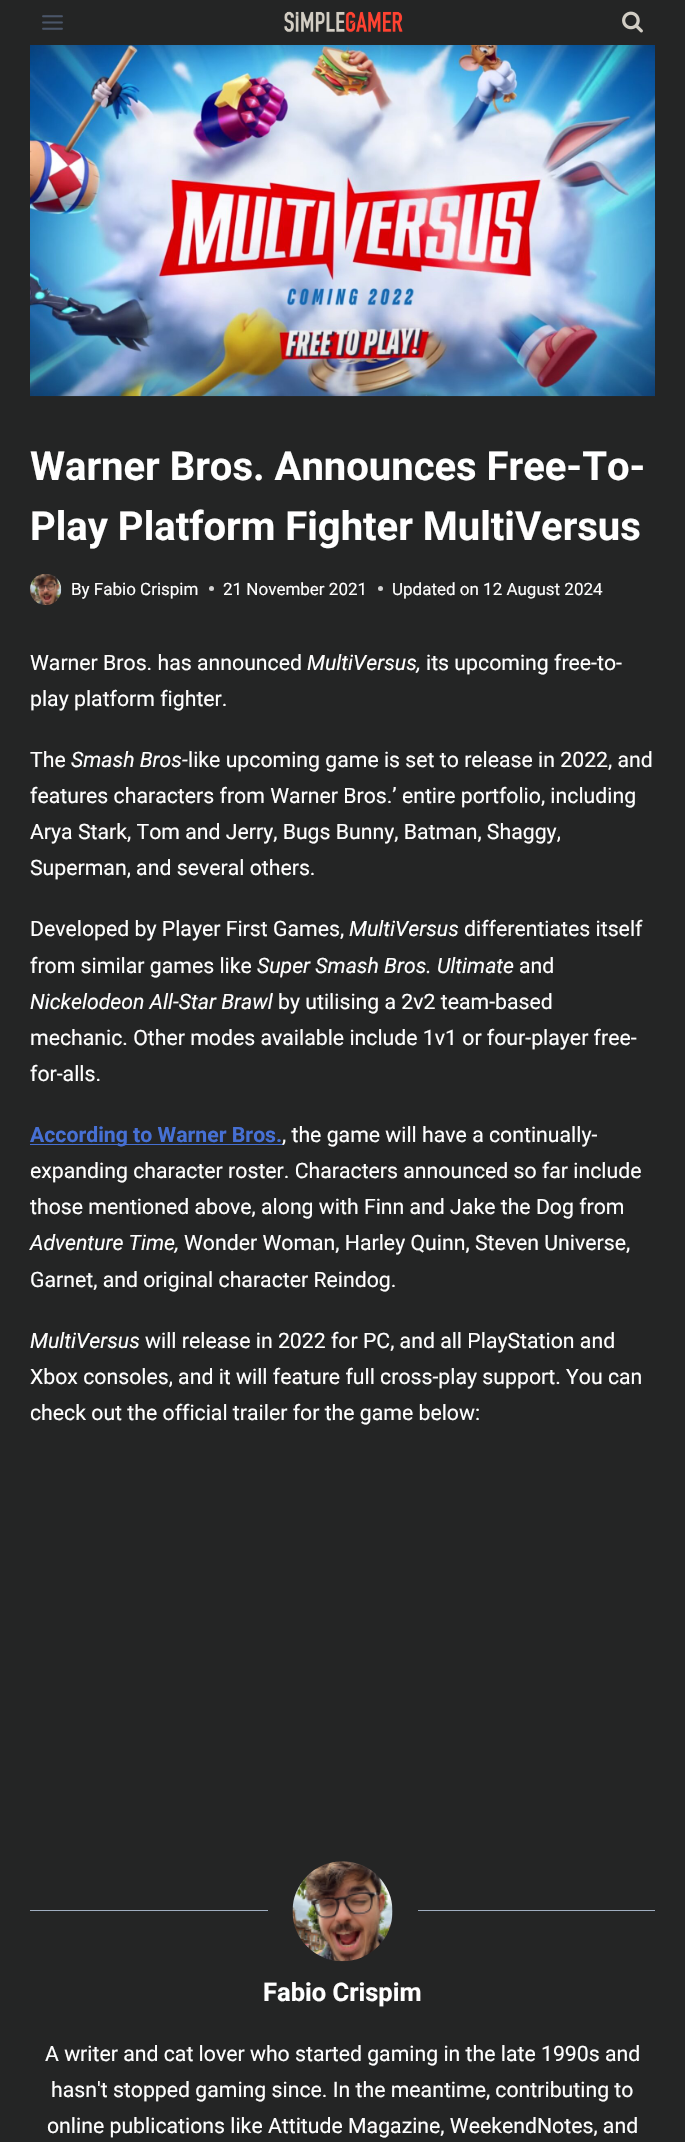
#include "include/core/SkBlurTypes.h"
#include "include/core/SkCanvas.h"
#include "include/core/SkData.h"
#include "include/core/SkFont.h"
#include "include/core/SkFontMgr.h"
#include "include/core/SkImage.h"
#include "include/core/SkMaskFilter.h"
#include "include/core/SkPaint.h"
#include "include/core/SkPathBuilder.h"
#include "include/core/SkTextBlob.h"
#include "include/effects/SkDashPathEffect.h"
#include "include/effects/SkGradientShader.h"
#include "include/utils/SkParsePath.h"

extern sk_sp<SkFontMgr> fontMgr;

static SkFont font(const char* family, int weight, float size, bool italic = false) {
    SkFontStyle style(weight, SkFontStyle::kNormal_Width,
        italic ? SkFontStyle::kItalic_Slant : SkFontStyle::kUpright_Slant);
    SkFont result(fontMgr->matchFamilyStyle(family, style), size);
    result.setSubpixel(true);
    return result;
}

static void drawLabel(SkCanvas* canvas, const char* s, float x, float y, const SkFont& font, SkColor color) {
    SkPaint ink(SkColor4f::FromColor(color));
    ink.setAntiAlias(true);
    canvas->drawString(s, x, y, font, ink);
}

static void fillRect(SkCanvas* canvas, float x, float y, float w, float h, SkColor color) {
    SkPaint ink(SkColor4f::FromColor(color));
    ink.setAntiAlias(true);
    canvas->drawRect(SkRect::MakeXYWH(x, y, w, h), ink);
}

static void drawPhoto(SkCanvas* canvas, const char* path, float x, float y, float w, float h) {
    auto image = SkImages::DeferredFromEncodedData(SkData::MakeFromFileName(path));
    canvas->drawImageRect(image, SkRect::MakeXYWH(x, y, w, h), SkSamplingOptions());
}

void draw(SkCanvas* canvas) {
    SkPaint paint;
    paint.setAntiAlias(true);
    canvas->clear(0xFF242525);
    drawPhoto(canvas, "assets/img1.png", 42, 15, 21, 15);
    drawPhoto(canvas, "assets/img2.png", 284, 11, 119, 22);
    drawPhoto(canvas, "assets/img3.png", 622, 11, 21, 22);
    drawPhoto(canvas, "assets/img4.png", 30, 45, 625, 352);
    SkFont font1 = font("Roboto", 700, 40);
    drawLabel(canvas, "Warner Bros. Announces Free-To-", 30, 480, font1, 0xFFFFFFFF);
    drawLabel(canvas, "Play Platform Fighter MultiVersus", 30, 540, font1, 0xFFFFFFFF);
    drawPhoto(canvas, "assets/img5.png", 30, 574, 32, 31);
    SkFont font2 = font("Roboto", 400, 17);
    drawLabel(canvas, "By Fabio Crispim", 71, 595, font2, 0xFFFFFFFF);
    paint.setColor(0xFFD3D3D3);
    canvas->drawCircle(211.5f, 588.5f, 2.5f, paint);
    drawLabel(canvas, "21 November 2021", 223, 595, font2, 0xFFFFFFFF);
    canvas->drawCircle(380.5f, 588.5f, 2.5f, paint);
    drawLabel(canvas, "Updated on 12 August 2024", 392, 595, font2, 0xFFFFFFFF);
    SkFont font3 = font("Roboto", 400, 21.25f);
    drawLabel(canvas, "Warner Bros. has announced", 30, 670, font3, 0xFFFFFFFF);
    SkFont font4 = font("Roboto", 400, 21.25f, true);
    drawLabel(canvas, "MultiVersus,", 307, 670, font4, 0xFFFFFFFF);
    drawLabel(canvas, "its upcoming free-to-", 426, 670, font3, 0xFFFFFFFF);
    drawLabel(canvas, "play platform fighter.", 30, 706, font3, 0xFFFFFFFF);
    drawLabel(canvas, "The", 30, 767, font3, 0xFFFFFFFF);
    drawLabel(canvas, "Smash Bros-", 71, 767, font4, 0xFFFFFFFF);
    drawLabel(canvas, "like upcoming game is set to release in 2022, and", 188, 767, font3, 0xFFFFFFFF);
    drawLabel(canvas, "features characters from Warner Bros.’ entire portfolio, including", 30, 803, font3, 0xFFFFFFFF);
    drawLabel(canvas, "Arya Stark, Tom and Jerry, Bugs Bunny, Batman, Shaggy,", 30, 839, font3, 0xFFFFFFFF);
    drawLabel(canvas, "Superman, and several others.", 30, 875, font3, 0xFFFFFFFF);
    drawLabel(canvas, "Developed by Player First Games,", 30, 936, font3, 0xFFFFFFFF);
    drawLabel(canvas, "MultiVersus", 349, 936, font4, 0xFFFFFFFF);
    drawLabel(canvas, "differentiates itself", 464, 936, font3, 0xFFFFFFFF);
    drawLabel(canvas, "from similar games like", 30, 973, font3, 0xFFFFFFFF);
    drawLabel(canvas, "Super Smash Bros. Ultimate", 257, 973, font4, 0xFFFFFFFF);
    drawLabel(canvas, "and", 519, 973, font3, 0xFFFFFFFF);
    drawLabel(canvas, "Nickelodeon All-Star Brawl", 30, 1009, font4, 0xFFFFFFFF);
    drawLabel(canvas, "by utilising a 2v2 team-based", 278, 1009, font3, 0xFFFFFFFF);
    drawLabel(canvas, "mechanic. Other modes available include 1v1 or four-player free-", 30, 1045, font3, 0xFFFFFFFF);
    drawLabel(canvas, "for-alls.", 30, 1081, font3, 0xFFFFFFFF);
    fillRect(canvas, 30, 1144, 253, 1, 0xFF4670D4);
    SkFont font5 = font("Roboto", 700, 21.25f);
    drawLabel(canvas, "According to Warner Bros.", 30, 1142, font5, 0xFF4670D4);
    drawLabel(canvas, ", the game will have a continually-", 282, 1142, font3, 0xFFFFFFFF);
    drawLabel(canvas, "expanding character roster. Characters announced so far include", 30, 1178, font3, 0xFFFFFFFF);
    drawLabel(canvas, "those mentioned above, along with Finn and Jake the Dog from", 30, 1214, font3, 0xFFFFFFFF);
    drawLabel(canvas, "Adventure Time,", 30, 1250, font4, 0xFFFFFFFF);
    drawLabel(canvas, "Wonder Woman, Harley Quinn, Steven Universe,", 184, 1250, font3, 0xFFFFFFFF);
    drawLabel(canvas, "Garnet, and original character Reindog.", 30, 1287, font3, 0xFFFFFFFF);
    drawLabel(canvas, "MultiVersus", 30, 1348, font4, 0xFFFFFFFF);
    drawLabel(canvas, "will release in 2022 for PC, and all PlayStation and", 145, 1348, font3, 0xFFFFFFFF);
    drawLabel(canvas, "Xbox consoles, and it will feature full cross-play support. You can", 30, 1384, font3, 0xFFFFFFFF);
    drawLabel(canvas, "check out the official trailer for the game below:", 30, 1420, font3, 0xFFFFFFFF);
    fillRect(canvas, 30, 1910, 238, 1, 0xFFA0AEC0);
    drawPhoto(canvas, "assets/img6.png", 292, 1861, 101, 101);
    fillRect(canvas, 418, 1910, 237, 1, 0xFFA0AEC0);
    SkFont font6 = font("Roboto", 700, 25.5f);
    drawLabel(canvas, "Fabio Crispim", 263, 2001, font6, 0xFFFFFFFF);
    drawLabel(canvas, "A writer and cat lover who started gaming in the late 1990s and", 45, 2061, font3, 0xFFFFFFFF);
    drawLabel(canvas, "hasn't stopped gaming since. In the meantime, contributing to", 51, 2097, font3, 0xFFFFFFFF);
    drawLabel(canvas, "online publications like Attitude Magazine, WeekendNotes, and", 47, 2133, font3, 0xFFFFFFFF);
}
